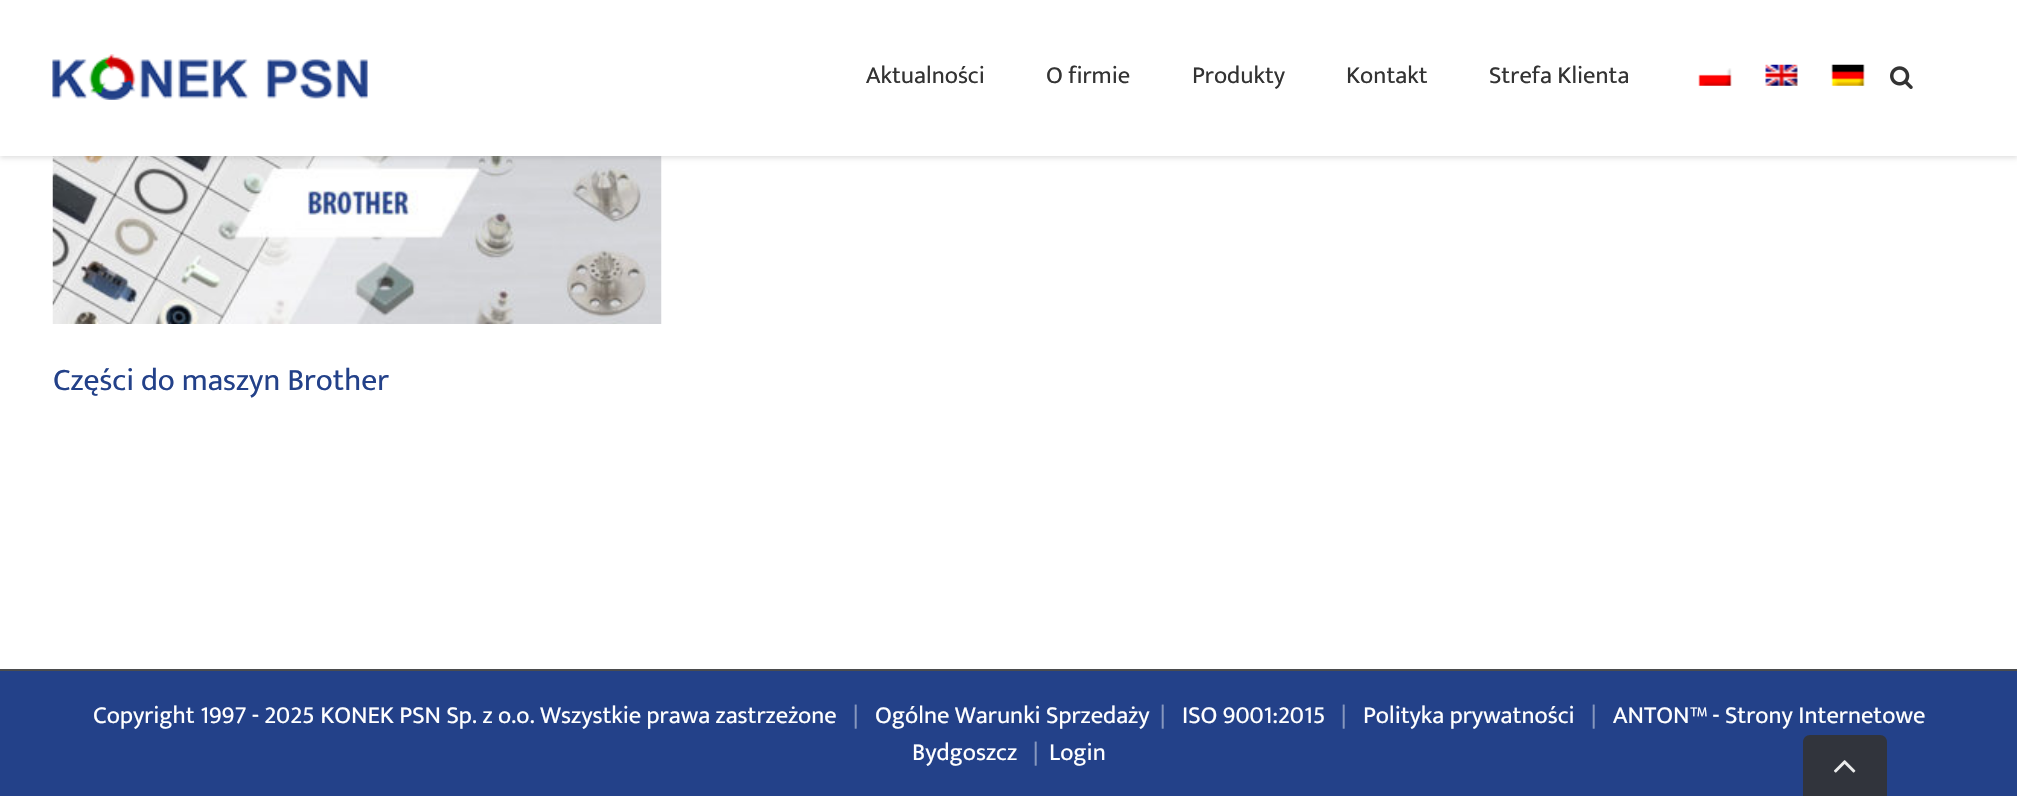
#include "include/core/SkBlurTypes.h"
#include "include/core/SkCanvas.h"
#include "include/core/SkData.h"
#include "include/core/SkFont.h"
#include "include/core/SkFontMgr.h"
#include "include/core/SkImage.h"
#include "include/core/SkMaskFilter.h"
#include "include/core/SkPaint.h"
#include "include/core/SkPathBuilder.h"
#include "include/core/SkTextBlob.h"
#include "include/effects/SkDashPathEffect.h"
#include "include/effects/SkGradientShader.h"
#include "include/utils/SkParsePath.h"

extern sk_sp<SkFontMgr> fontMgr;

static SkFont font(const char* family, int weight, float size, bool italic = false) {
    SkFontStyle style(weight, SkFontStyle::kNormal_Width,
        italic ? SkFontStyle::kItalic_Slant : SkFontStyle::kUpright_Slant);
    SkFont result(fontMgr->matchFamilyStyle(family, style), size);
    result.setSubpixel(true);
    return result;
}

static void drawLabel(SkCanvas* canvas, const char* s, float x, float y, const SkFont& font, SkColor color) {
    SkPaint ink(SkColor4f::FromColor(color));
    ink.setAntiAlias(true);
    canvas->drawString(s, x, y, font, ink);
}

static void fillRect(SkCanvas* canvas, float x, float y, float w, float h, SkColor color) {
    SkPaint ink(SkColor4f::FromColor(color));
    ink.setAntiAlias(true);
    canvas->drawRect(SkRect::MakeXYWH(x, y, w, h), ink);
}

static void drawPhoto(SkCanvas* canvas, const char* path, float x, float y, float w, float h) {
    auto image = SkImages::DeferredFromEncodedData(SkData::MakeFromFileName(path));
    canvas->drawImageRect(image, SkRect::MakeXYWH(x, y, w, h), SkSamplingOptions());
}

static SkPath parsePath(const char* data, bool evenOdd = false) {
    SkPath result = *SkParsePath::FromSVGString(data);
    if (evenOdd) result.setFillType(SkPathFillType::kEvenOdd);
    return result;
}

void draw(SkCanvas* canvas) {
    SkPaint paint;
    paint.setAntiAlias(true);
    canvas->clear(0xFFFFFFFF);
    drawPhoto(canvas, "assets/img6.png", 52, 156, 610, 168);
    paint.setColor(0x1F000000);
    paint.setMaskFilter(SkMaskFilter::MakeBlur(kNormal_SkBlurStyle, 2.5f));
    canvas->drawRect(SkRect::MakeXYWH(0, 2, 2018, 156), paint);
    paint.setMaskFilter(nullptr);
    fillRect(canvas, 0, 0, 2017, 156, 0xFFFFFFFF);
    drawPhoto(canvas, "assets/img1.png", 52, 54, 316, 46);
    SkFont font1 = font("Mukta", 400, 24.5f);
    drawLabel(canvas, "Aktualności", 866, 83, font1, 0xFF333333);
    drawLabel(canvas, "O firmie", 1046, 83, font1, 0xFF333333);
    drawLabel(canvas, "Produkty", 1192, 83, font1, 0xFF333333);
    drawLabel(canvas, "Kontakt", 1346, 83, font1, 0xFF333333);
    drawLabel(canvas, "Strefa Klienta", 1489, 83, font1, 0xFF333333);
    drawPhoto(canvas, "assets/img2.png", 1698, 68, 34, 18);
    drawPhoto(canvas, "assets/img3.png", 1765, 64, 33, 22);
    drawPhoto(canvas, "assets/img4.png", 1831, 64, 34, 22);
    drawPhoto(canvas, "assets/img5.png", 1890, 66, 23, 23);
    SkFont font2 = font("Mukta", 400, 31.5f);
    drawLabel(canvas, "Części do maszyn Brother", 53, 390, font2, 0xFF234189);
    fillRect(canvas, 0, 671, 2017, 125, 0xFF234189);
    fillRect(canvas, 0, 669, 2017, 2, 0xFF4B4C4D);
    drawLabel(canvas, "Copyright 1997 - 2025 KONEK PSN Sp. z o.o. Wszystkie prawa zastrzeżone", 93, 723, font1, 0xFFFFFFFF);
    drawLabel(canvas, "|", 853, 723, font1, 0xFF8697BE);
    drawLabel(canvas, "Ogólne Warunki Sprzedaży", 875, 723, font1, 0xFFFFFFFF);
    drawLabel(canvas, "|", 1160, 723, font1, 0xFF8697BE);
    drawLabel(canvas, "ISO 9001:2015", 1182, 723, font1, 0xFFFFFFFF);
    drawLabel(canvas, "|", 1341, 723, font1, 0xFF8697BE);
    drawLabel(canvas, "Polityka prywatności", 1363, 723, font1, 0xFFFFFFFF);
    drawLabel(canvas, "|", 1591, 723, font1, 0xFF8697BE);
    drawLabel(canvas, "ANTON™ - Strony Internetowe", 1613, 723, font1, 0xFFFFFFFF);
    drawLabel(canvas, "Bydgoszcz", 912, 760, font1, 0xFFFFFFFF);
    drawLabel(canvas, "|", 1033, 760, font1, 0xFF8697BE);
    drawLabel(canvas, "Login", 1049, 760, font1, 0xFFFFFFFF);
    paint.setColor(0xFF31343C);
    canvas->drawPath(parsePath("M1810 735H1880C1884 735 1887 738 1887 742V796H1803V742C1803 738 1806 735 1810 735Z"), paint);
    drawPhoto(canvas, "assets/img7.png", 1834, 760, 22, 13);
}
